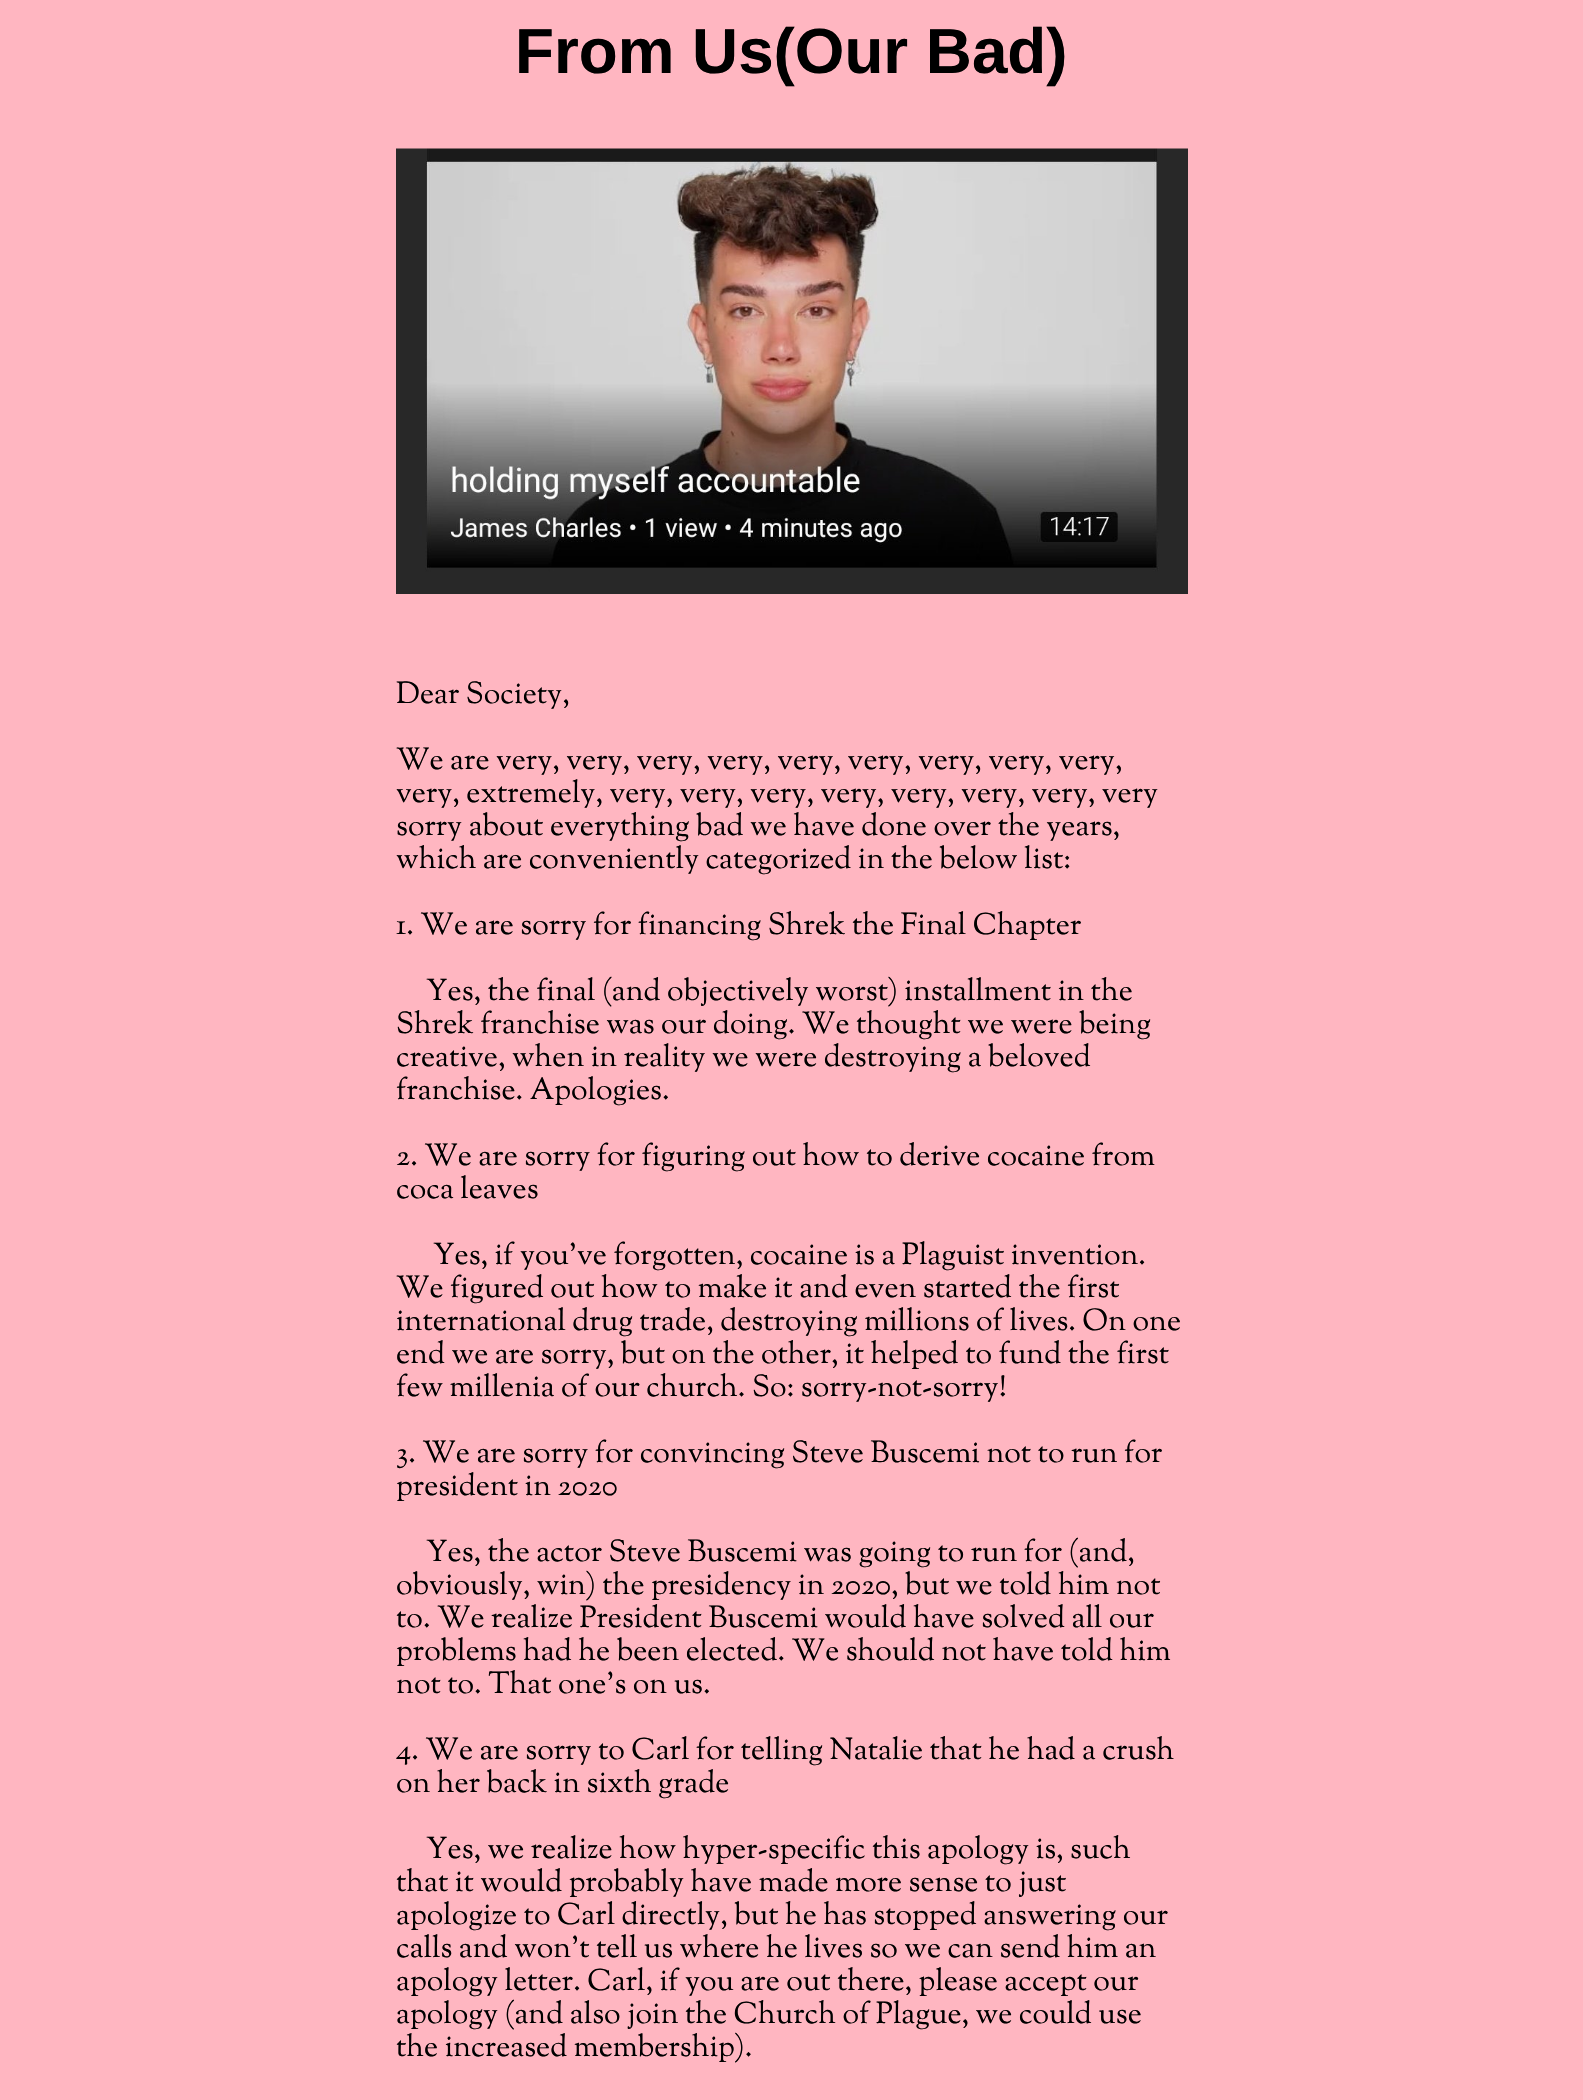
#include "include/core/SkBlurTypes.h"
#include "include/core/SkCanvas.h"
#include "include/core/SkData.h"
#include "include/core/SkFont.h"
#include "include/core/SkFontMgr.h"
#include "include/core/SkImage.h"
#include "include/core/SkMaskFilter.h"
#include "include/core/SkPaint.h"
#include "include/core/SkPathBuilder.h"
#include "include/core/SkTextBlob.h"
#include "include/effects/SkDashPathEffect.h"
#include "include/effects/SkGradientShader.h"
#include "include/utils/SkParsePath.h"

extern sk_sp<SkFontMgr> fontMgr;

static SkFont font(const char* family, int weight, float size, bool italic = false) {
    SkFontStyle style(weight, SkFontStyle::kNormal_Width,
        italic ? SkFontStyle::kItalic_Slant : SkFontStyle::kUpright_Slant);
    SkFont result(fontMgr->matchFamilyStyle(family, style), size);
    result.setSubpixel(true);
    return result;
}

static void drawLabel(SkCanvas* canvas, const char* s, float x, float y, const SkFont& font, SkColor color) {
    SkPaint ink(SkColor4f::FromColor(color));
    ink.setAntiAlias(true);
    canvas->drawString(s, x, y, font, ink);
}

static void drawPhoto(SkCanvas* canvas, const char* path, float x, float y, float w, float h) {
    auto image = SkImages::DeferredFromEncodedData(SkData::MakeFromFileName(path));
    canvas->drawImageRect(image, SkRect::MakeXYWH(x, y, w, h), SkSamplingOptions());
}

void draw(SkCanvas* canvas) {
    SkPaint paint;
    paint.setAntiAlias(true);
    canvas->clear(0xFFFFB6C1);
    SkFont font1 = font("Liberation Sans", 700, 63.75f);
    drawLabel(canvas, "From Us(Our Bad)", 515, 73, font1, 0xFF000000);
    drawPhoto(canvas, "assets/img1.png", 396, 148, 792, 446);
    SkFont font2 = font("Sorts Mill Goudy", 500, 30.25f);
    drawLabel(canvas, "Dear Society,", 396, 703, font2, 0xFF000000);
    drawLabel(canvas, "We are very, very, very, very, very, very, very, very, very,", 396, 769, font2, 0xFF000000);
    drawLabel(canvas, "very, extremely, very, very, very, very, very, very, very, very", 396, 802, font2, 0xFF000000);
    drawLabel(canvas, "sorry about everything bad we have done over the years,", 396, 835, font2, 0xFF000000);
    drawLabel(canvas, "which are conveniently categorized in the below list:", 396, 868, font2, 0xFF000000);
    drawLabel(canvas, "1. We are sorry for financing Shrek the Final Chapter", 396, 934, font2, 0xFF000000);
    drawLabel(canvas, "Yes, the final (and objectively worst) installment in the", 426, 1000, font2, 0xFF000000);
    drawLabel(canvas, "Shrek franchise was our doing. We thought we were being", 396, 1033, font2, 0xFF000000);
    drawLabel(canvas, "creative, when in reality we were destroying a beloved", 396, 1066, font2, 0xFF000000);
    drawLabel(canvas, "franchise. Apologies.", 396, 1099, font2, 0xFF000000);
    drawLabel(canvas, "2. We are sorry for figuring out how to derive cocaine from", 396, 1165, font2, 0xFF000000);
    drawLabel(canvas, "coca leaves", 396, 1198, font2, 0xFF000000);
    drawLabel(canvas, "Yes, if you’ve forgotten, cocaine is a Plaguist invention.", 433, 1264, font2, 0xFF000000);
    drawLabel(canvas, "We figured out how to make it and even started the first", 396, 1297, font2, 0xFF000000);
    drawLabel(canvas, "international drug trade, destroying millions of lives. On one", 396, 1330, font2, 0xFF000000);
    drawLabel(canvas, "end we are sorry, but on the other, it helped to fund the first", 396, 1363, font2, 0xFF000000);
    drawLabel(canvas, "few millenia of our church. So: sorry-not-sorry!", 396, 1396, font2, 0xFF000000);
    drawLabel(canvas, "3. We are sorry for convincing Steve Buscemi not to run for", 396, 1462, font2, 0xFF000000);
    drawLabel(canvas, "president in 2020", 396, 1495, font2, 0xFF000000);
    drawLabel(canvas, "Yes, the actor Steve Buscemi was going to run for (and,", 426, 1561, font2, 0xFF000000);
    drawLabel(canvas, "obviously, win) the presidency in 2020, but we told him not", 396, 1594, font2, 0xFF000000);
    drawLabel(canvas, "to. We realize President Buscemi would have solved all our", 396, 1627, font2, 0xFF000000);
    drawLabel(canvas, "problems had he been elected. We should not have told him", 396, 1660, font2, 0xFF000000);
    drawLabel(canvas, "not to. That one’s on us.", 396, 1693, font2, 0xFF000000);
    drawLabel(canvas, "4. We are sorry to Carl for telling Natalie that he had a crush", 396, 1759, font2, 0xFF000000);
    drawLabel(canvas, "on her back in sixth grade", 396, 1792, font2, 0xFF000000);
    drawLabel(canvas, "Yes, we realize how hyper-specific this apology is, such", 426, 1858, font2, 0xFF000000);
    drawLabel(canvas, "that it would probably have made more sense to just", 396, 1891, font2, 0xFF000000);
    drawLabel(canvas, "apologize to Carl directly, but he has stopped answering our", 396, 1924, font2, 0xFF000000);
    drawLabel(canvas, "calls and won’t tell us where he lives so we can send him an", 396, 1957, font2, 0xFF000000);
    drawLabel(canvas, "apology letter. Carl, if you are out there, please accept our", 396, 1990, font2, 0xFF000000);
    drawLabel(canvas, "apology (and also join the Church of Plague, we could use", 396, 2023, font2, 0xFF000000);
    drawLabel(canvas, "the increased membership).", 396, 2056, font2, 0xFF000000);
}
